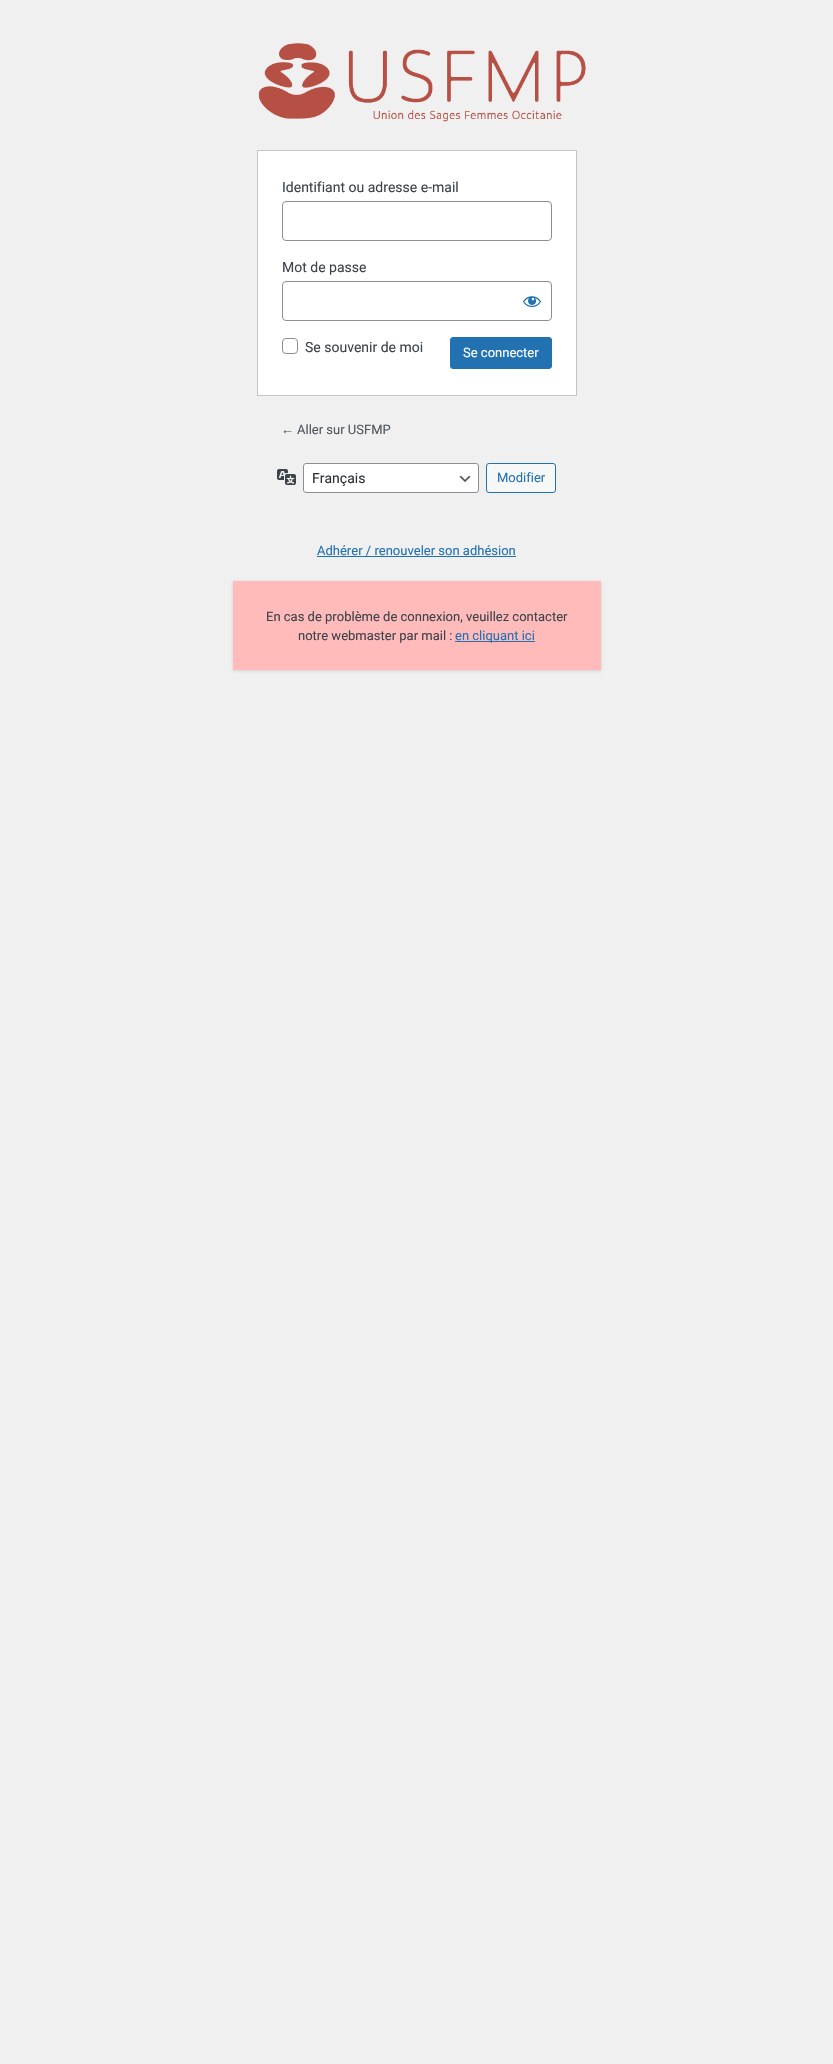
#include "include/core/SkBlurTypes.h"
#include "include/core/SkCanvas.h"
#include "include/core/SkData.h"
#include "include/core/SkFont.h"
#include "include/core/SkFontMgr.h"
#include "include/core/SkImage.h"
#include "include/core/SkMaskFilter.h"
#include "include/core/SkPaint.h"
#include "include/core/SkPathBuilder.h"
#include "include/core/SkTextBlob.h"
#include "include/effects/SkDashPathEffect.h"
#include "include/effects/SkGradientShader.h"
#include "include/utils/SkParsePath.h"

extern sk_sp<SkFontMgr> fontMgr;

static SkFont font(const char* family, int weight, float size, bool italic = false) {
    SkFontStyle style(weight, SkFontStyle::kNormal_Width,
        italic ? SkFontStyle::kItalic_Slant : SkFontStyle::kUpright_Slant);
    SkFont result(fontMgr->matchFamilyStyle(family, style), size);
    result.setSubpixel(true);
    return result;
}

static void drawLabel(SkCanvas* canvas, const char* s, float x, float y, const SkFont& font, SkColor color) {
    SkPaint ink(SkColor4f::FromColor(color));
    ink.setAntiAlias(true);
    canvas->drawString(s, x, y, font, ink);
}

static void fillRect(SkCanvas* canvas, float x, float y, float w, float h, SkColor color) {
    SkPaint ink(SkColor4f::FromColor(color));
    ink.setAntiAlias(true);
    canvas->drawRect(SkRect::MakeXYWH(x, y, w, h), ink);
}

static void fillRRect(SkCanvas* canvas, float x, float y, float w, float h, float radius, SkColor color) {
    SkPaint ink(SkColor4f::FromColor(color));
    ink.setAntiAlias(true);
    canvas->drawRoundRect(SkRect::MakeXYWH(x, y, w, h), radius, radius, ink);
}

static void drawPhoto(SkCanvas* canvas, const char* path, float x, float y, float w, float h) {
    auto image = SkImages::DeferredFromEncodedData(SkData::MakeFromFileName(path));
    canvas->drawImageRect(image, SkRect::MakeXYWH(x, y, w, h), SkSamplingOptions());
}

void draw(SkCanvas* canvas) {
    SkPaint paint;
    paint.setAntiAlias(true);
    canvas->clear(0xFFF0F0F1);
    drawPhoto(canvas, "assets/img1.png", 258, 43, 328, 79);
    paint.setColor(0xFFFFFFFF);
    canvas->drawRect(SkRect::MakeXYWH(257.5f, 150.5f, 319, 245), paint);
    paint.setStroke(true);
    paint.setStrokeWidth(1);
    paint.setColor(0xFFC3C4C7);
    canvas->drawRect(SkRect::MakeXYWH(257.5f, 150.5f, 319, 245), paint);
    SkFont font1 = font("Roboto", 400, 14);
    drawLabel(canvas, "Identifiant ou adresse e-mail", 282, 192, font1, 0xFF3C434A);
    paint.setColor(0xFF8C8F94);
    canvas->drawRoundRect(SkRect::MakeXYWH(282.5f, 201.5f, 269, 39), 3.5f, 3.5f, paint);
    drawLabel(canvas, "Mot de passe", 282, 272, font1, 0xFF3C434A);
    canvas->drawRoundRect(SkRect::MakeXYWH(282.5f, 281.5f, 269, 39), 3.5f, 3.5f, paint);
    drawPhoto(canvas, "assets/img2.png", 523, 296, 18, 12);
    canvas->drawRoundRect(SkRect::MakeXYWH(282.5f, 338.5f, 15, 15), 3.5f, 3.5f, paint);
    drawLabel(canvas, "Se souvenir de moi", 305, 352, font1, 0xFF3C434A);
    paint.setStroke(false);
    paint.setColor(0xFF2271B1);
    canvas->drawRoundRect(SkRect::MakeXYWH(450.5f, 337.5f, 101, 31), 2.5f, 2.5f, paint);
    paint.setStroke(true);
    canvas->drawRoundRect(SkRect::MakeXYWH(450.5f, 337.5f, 101, 31), 2.5f, 2.5f, paint);
    SkFont font2 = font("Roboto", 400, 13);
    drawLabel(canvas, "Se connecter", 463, 357, font2, 0xFFFFFFFF);
    SkFont font3 = font("Liberation Sans", 400, 13);
    drawLabel(canvas, "←", 281, 434, font3, 0xFF50575E);
    drawLabel(canvas, "Aller sur USFMP", 297, 434, font2, 0xFF50575E);
    drawPhoto(canvas, "assets/img3.png", 277, 469, 19, 16);
    fillRRect(canvas, 303, 463, 176, 30, 3, 0xFFFFFFFF);
    drawPhoto(canvas, "assets/img4.png", 459, 475, 12, 7);
    paint.setColor(0xFF8C8F94);
    canvas->drawRoundRect(SkRect::MakeXYWH(303.5f, 463.5f, 175, 29), 2.5f, 2.5f, paint);
    drawLabel(canvas, "Français", 312, 483, font1, 0xFF2C3338);
    paint.setStroke(false);
    paint.setColor(0xFFF6F7F7);
    canvas->drawRoundRect(SkRect::MakeXYWH(486.5f, 463.5f, 69, 29), 2.5f, 2.5f, paint);
    paint.setStroke(true);
    paint.setColor(0xFF2271B1);
    canvas->drawRoundRect(SkRect::MakeXYWH(486.5f, 463.5f, 69, 29), 2.5f, 2.5f, paint);
    drawLabel(canvas, "Modifier", 497, 482, font2, 0xFF2271B1);
    drawLabel(canvas, "Adhérer / renouveler son adhésion", 317, 555, font2, 0xFF2271B1);
    fillRect(canvas, 317, 556, 199, 1, 0xFF2271B1);
    paint.setStroke(false);
    paint.setColor(0x21000000);
    paint.setMaskFilter(SkMaskFilter::MakeBlur(kNormal_SkBlurStyle, 1.5f));
    canvas->drawRect(SkRect::MakeXYWH(233, 582, 368, 89), paint);
    paint.setMaskFilter(nullptr);
    fillRect(canvas, 233, 581, 368, 89, 0xFFFFBABA);
    drawLabel(canvas, "En cas de problème de connexion, veuillez contacter", 266, 621, font2, 0xFF3C434A);
    drawLabel(canvas, "notre webmaster par mail :", 298, 640, font2, 0xFF3C434A);
    fillRect(canvas, 455, 641, 80, 1, 0xFF2271B1);
    drawLabel(canvas, "en cliquant ici", 455, 640, font2, 0xFF2271B1);
}
